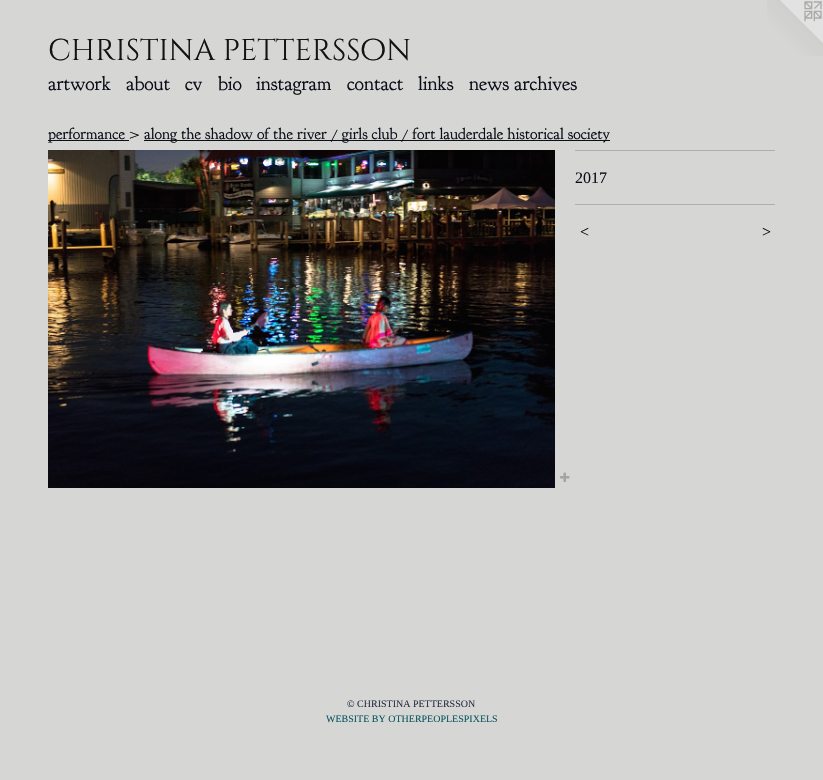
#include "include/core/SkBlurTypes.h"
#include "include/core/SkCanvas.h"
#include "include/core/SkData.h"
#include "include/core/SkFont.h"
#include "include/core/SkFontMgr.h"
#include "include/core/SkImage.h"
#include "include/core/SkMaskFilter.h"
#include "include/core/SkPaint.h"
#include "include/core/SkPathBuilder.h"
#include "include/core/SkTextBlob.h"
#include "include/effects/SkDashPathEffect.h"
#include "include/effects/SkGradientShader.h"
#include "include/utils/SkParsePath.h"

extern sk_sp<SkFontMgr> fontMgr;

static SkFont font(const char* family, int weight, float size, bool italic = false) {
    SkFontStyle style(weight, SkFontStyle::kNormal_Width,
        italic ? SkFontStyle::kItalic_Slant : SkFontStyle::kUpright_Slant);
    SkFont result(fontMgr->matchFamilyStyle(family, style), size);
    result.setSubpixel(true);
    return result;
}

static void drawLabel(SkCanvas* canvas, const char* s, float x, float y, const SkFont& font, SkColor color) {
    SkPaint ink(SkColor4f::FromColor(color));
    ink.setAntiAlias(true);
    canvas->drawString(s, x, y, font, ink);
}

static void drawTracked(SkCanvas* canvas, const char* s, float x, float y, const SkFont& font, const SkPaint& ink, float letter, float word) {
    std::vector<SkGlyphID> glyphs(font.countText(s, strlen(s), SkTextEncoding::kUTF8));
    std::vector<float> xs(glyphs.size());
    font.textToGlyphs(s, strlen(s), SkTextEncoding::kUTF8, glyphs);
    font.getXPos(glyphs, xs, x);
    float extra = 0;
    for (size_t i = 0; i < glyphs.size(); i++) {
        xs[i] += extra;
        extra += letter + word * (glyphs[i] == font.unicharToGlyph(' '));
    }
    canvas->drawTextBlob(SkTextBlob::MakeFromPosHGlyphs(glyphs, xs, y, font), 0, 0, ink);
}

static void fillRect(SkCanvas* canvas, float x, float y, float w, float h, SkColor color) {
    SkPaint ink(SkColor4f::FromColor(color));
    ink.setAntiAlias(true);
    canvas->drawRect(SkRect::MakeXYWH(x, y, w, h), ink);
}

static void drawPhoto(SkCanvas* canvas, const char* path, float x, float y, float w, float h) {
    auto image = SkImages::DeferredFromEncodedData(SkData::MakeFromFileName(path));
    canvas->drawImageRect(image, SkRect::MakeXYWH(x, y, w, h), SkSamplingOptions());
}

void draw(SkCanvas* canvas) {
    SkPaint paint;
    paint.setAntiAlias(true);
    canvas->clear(0xFFD6D6D5);
    SkFont font1 = font("Cinzel Decorative", 400, 30);
    drawLabel(canvas, "christina pettersson", 48, 60, font1, 0xFF15130E);
    drawPhoto(canvas, "assets/img1.png", 767, 0, 56, 56);
    SkFont font2 = font("Goudy Bookletter 1911", 400, 20);
    drawLabel(canvas, "artwork", 48, 90, font2, 0xFF0C0E18);
    drawLabel(canvas, "about", 126, 90, font2, 0xFF0C0E18);
    drawLabel(canvas, "cv", 185, 90, font2, 0xFF0C0E18);
    drawLabel(canvas, "bio", 218, 90, font2, 0xFF0C0E18);
    drawLabel(canvas, "instagram", 256, 90, font2, 0xFF0C0E18);
    drawLabel(canvas, "contact", 347, 90, font2, 0xFF0C0E18);
    drawLabel(canvas, "links", 418, 90, font2, 0xFF0C0E18);
    drawLabel(canvas, "news archives", 469, 90, font2, 0xFF0C0E18);
    fillRect(canvas, 48, 140, 81, 1, 0xFF0C0E18);
    SkFont font3 = font("Goudy Bookletter 1911", 400, 16);
    drawLabel(canvas, "performance >", 48, 139, font3, 0xFF0C0E18);
    fillRect(canvas, 144, 140, 466, 1, 0xFF0C0E18);
    drawLabel(canvas, "along the shadow of the river / girls club / fort lauderdale historical society", 144, 139, font3, 0xFF0C0E18);
    drawPhoto(canvas, "assets/img2.png", 48, 150, 507, 338);
    drawPhoto(canvas, "assets/img3.png", 560, 472, 10, 10);
    fillRect(canvas, 575, 150, 200, 1, 0xFFAEAEAF);
    SkFont font4 = font("Liberation Serif", 400, 16);
    drawLabel(canvas, "2017", 575, 183, font4, 0xFF0C0E18);
    fillRect(canvas, 575, 204, 200, 1, 0xFFAEAEAF);
    SkFont font5 = font("Liberation Serif", 400, 16, true);
    paint.setColor(0xFF0C0E18);
    drawTracked(canvas, "<", 579, 237, font5, paint, 1, 0);
    drawTracked(canvas, ">", 761, 237, font5, paint, 1, 0);
    SkFont font6 = font("Liberation Serif", 400, 10);
    drawLabel(canvas, "© CHRISTINA PETTERSSON", 347, 707, font6, 0xFF2D3248);
    drawLabel(canvas, "WEBSITE BY OTHERPEOPLESPIXELS", 326, 722, font6, 0xFF0F5961);
}
